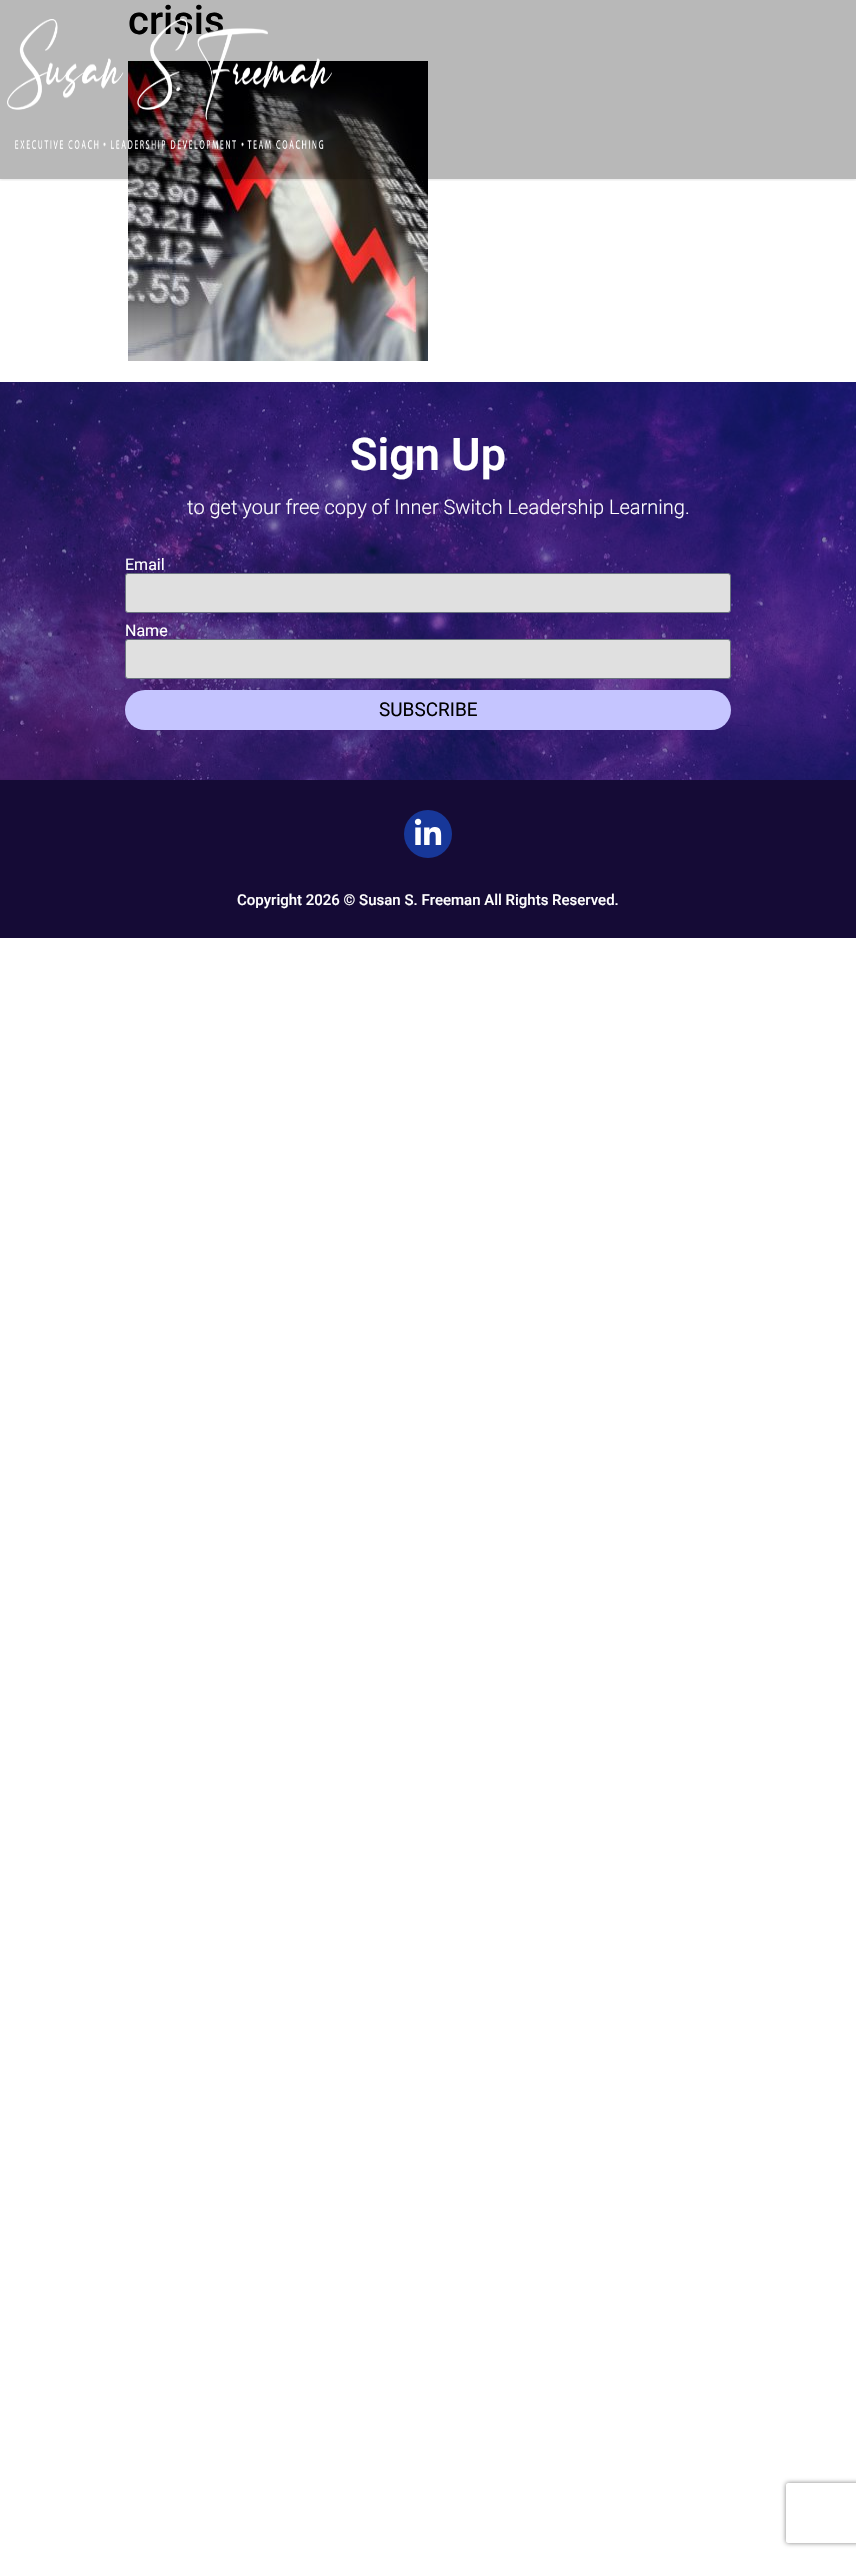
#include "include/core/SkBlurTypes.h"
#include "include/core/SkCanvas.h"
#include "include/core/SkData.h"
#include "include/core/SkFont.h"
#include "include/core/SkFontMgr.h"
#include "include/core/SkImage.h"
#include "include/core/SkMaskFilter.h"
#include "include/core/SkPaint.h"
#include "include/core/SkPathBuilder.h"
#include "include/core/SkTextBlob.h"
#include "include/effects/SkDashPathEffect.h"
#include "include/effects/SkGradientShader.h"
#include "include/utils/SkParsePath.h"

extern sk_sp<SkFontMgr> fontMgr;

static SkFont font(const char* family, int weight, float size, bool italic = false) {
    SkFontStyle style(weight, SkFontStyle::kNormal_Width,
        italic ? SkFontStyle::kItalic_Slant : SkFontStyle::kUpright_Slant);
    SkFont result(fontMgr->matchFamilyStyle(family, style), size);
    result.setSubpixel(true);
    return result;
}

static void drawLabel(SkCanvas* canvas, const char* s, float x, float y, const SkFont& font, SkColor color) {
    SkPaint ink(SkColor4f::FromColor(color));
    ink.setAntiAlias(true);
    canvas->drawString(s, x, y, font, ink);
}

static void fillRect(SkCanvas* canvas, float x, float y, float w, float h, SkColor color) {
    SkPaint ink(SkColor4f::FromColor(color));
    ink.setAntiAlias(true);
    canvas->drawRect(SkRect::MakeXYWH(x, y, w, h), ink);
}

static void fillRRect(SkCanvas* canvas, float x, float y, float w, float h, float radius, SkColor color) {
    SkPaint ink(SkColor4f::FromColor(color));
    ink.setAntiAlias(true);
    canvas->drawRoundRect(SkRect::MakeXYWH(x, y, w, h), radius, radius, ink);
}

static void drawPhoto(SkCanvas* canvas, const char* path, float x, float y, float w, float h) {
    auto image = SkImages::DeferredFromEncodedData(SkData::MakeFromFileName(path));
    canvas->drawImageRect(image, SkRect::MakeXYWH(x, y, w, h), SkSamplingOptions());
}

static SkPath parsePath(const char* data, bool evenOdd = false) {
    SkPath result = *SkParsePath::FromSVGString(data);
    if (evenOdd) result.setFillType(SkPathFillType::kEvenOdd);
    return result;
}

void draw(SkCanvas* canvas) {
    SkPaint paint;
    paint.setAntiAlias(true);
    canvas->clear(0xFFFFFFFF);
    drawPhoto(canvas, "assets/img2.png", 128, 61, 300, 300);
    canvas->save();
    canvas->clipRect(SkRect::MakeXYWH(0, 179, 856, 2));
    paint.setColor(0x1A000000);
    paint.setMaskFilter(SkMaskFilter::MakeBlur(kNormal_SkBlurStyle, 1.5f));
    canvas->drawRect(SkRect::MakeXYWH(0, 1, 856, 179), paint);
    paint.setMaskFilter(nullptr);
    canvas->restore();
    SkFont font1 = font("Roboto", 500, 40);
    drawLabel(canvas, "crisis", 128, 34, font1, 0xFF000000);
    fillRect(canvas, 0, 0, 856, 179, 0x47000000);
    drawPhoto(canvas, "assets/img1.png", 7, 19, 325, 130);
    drawPhoto(canvas, "assets/img3.png", 0, 382, 856, 398);
    SkFont font2 = font("Roboto", 600, 45);
    drawLabel(canvas, "Sign Up", 350, 470, font2, 0xFFFFFFFF);
    SkFont font3 = font("Roboto", 300, 20);
    drawLabel(canvas, "to get your free copy of Inner Switch Leadership Learning.", 187, 514, font3, 0xFFFFFFFF);
    SkFont font4 = font("Roboto", 400, 16);
    drawLabel(canvas, "Email", 125, 570, font4, 0xFFFFFFFF);
    paint.setColor(0xFFE0E0E0);
    canvas->drawRoundRect(SkRect::MakeXYWH(125.5f, 573.5f, 605, 39), 2.5f, 2.5f, paint);
    paint.setStroke(true);
    paint.setStrokeWidth(1);
    paint.setColor(0xFF69727D);
    canvas->drawRoundRect(SkRect::MakeXYWH(125.5f, 573.5f, 605, 39), 2.5f, 2.5f, paint);
    drawLabel(canvas, "Name", 125, 636, font4, 0xFFFFFFFF);
    paint.setStroke(false);
    paint.setColor(0xFFE0E0E0);
    canvas->drawRoundRect(SkRect::MakeXYWH(125.5f, 639.5f, 605, 39), 2.5f, 2.5f, paint);
    paint.setStroke(true);
    paint.setColor(0xFF69727D);
    canvas->drawRoundRect(SkRect::MakeXYWH(125.5f, 639.5f, 605, 39), 2.5f, 2.5f, paint);
    fillRRect(canvas, 125, 690, 606, 40, 20, 0xFFC5C5FF);
    SkFont font5 = font("Roboto", 400, 19);
    drawLabel(canvas, "SUBSCRIBE", 379, 716, font5, 0xFF000000);
    canvas->save();
    canvas->clipPath(parsePath("M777 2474H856V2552H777ZM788 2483H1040C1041 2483 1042 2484 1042 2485V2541C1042 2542 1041 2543 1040 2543H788C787 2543 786 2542 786 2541V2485C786 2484 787 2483 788 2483Z", true), true);
    paint.setStroke(false);
    paint.setColor(0xFF808080);
    paint.setMaskFilter(SkMaskFilter::MakeBlur(kNormal_SkBlurStyle, 2.5f));
    canvas->drawRoundRect(SkRect::MakeXYWH(786, 2483, 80, 60), 2, 2, paint);
    paint.setMaskFilter(nullptr);
    canvas->restore();
    fillRect(canvas, 0, 780, 856, 158, 0xFF150B36);
    paint.setColor(0xFF173799);
    canvas->drawCircle(428, 834, 24, paint);
    drawPhoto(canvas, "assets/img4.png", 414, 818, 28, 27);
    SkFont font6 = font("Roboto", 500, 15);
    drawLabel(canvas, "Copyright 2026 © Susan S. Freeman All Rights Reserved.", 237, 905, font6, 0xFFFFFFFF);
}
